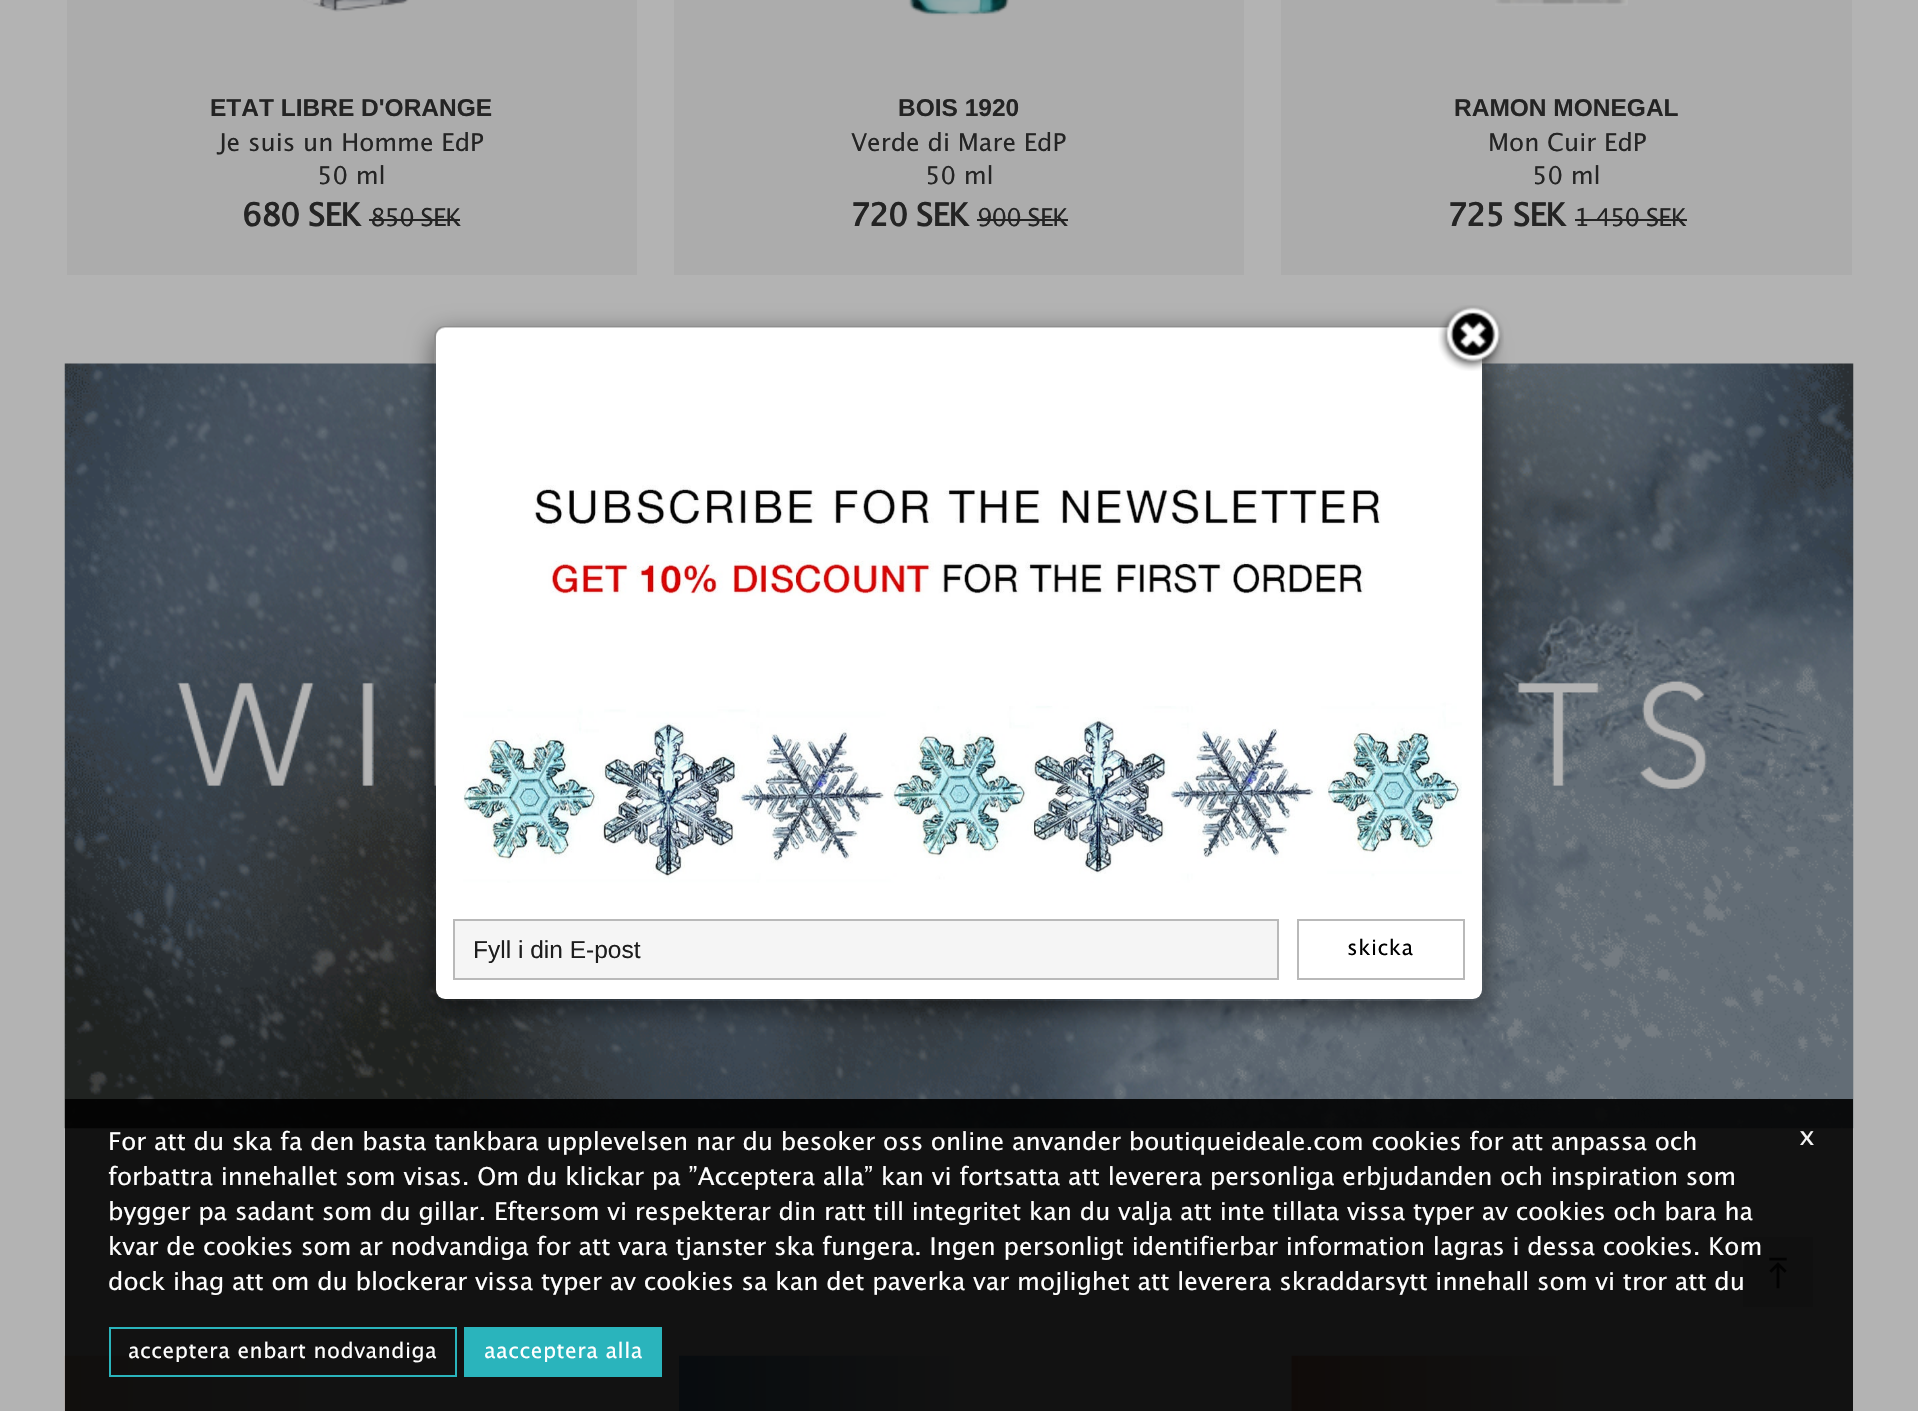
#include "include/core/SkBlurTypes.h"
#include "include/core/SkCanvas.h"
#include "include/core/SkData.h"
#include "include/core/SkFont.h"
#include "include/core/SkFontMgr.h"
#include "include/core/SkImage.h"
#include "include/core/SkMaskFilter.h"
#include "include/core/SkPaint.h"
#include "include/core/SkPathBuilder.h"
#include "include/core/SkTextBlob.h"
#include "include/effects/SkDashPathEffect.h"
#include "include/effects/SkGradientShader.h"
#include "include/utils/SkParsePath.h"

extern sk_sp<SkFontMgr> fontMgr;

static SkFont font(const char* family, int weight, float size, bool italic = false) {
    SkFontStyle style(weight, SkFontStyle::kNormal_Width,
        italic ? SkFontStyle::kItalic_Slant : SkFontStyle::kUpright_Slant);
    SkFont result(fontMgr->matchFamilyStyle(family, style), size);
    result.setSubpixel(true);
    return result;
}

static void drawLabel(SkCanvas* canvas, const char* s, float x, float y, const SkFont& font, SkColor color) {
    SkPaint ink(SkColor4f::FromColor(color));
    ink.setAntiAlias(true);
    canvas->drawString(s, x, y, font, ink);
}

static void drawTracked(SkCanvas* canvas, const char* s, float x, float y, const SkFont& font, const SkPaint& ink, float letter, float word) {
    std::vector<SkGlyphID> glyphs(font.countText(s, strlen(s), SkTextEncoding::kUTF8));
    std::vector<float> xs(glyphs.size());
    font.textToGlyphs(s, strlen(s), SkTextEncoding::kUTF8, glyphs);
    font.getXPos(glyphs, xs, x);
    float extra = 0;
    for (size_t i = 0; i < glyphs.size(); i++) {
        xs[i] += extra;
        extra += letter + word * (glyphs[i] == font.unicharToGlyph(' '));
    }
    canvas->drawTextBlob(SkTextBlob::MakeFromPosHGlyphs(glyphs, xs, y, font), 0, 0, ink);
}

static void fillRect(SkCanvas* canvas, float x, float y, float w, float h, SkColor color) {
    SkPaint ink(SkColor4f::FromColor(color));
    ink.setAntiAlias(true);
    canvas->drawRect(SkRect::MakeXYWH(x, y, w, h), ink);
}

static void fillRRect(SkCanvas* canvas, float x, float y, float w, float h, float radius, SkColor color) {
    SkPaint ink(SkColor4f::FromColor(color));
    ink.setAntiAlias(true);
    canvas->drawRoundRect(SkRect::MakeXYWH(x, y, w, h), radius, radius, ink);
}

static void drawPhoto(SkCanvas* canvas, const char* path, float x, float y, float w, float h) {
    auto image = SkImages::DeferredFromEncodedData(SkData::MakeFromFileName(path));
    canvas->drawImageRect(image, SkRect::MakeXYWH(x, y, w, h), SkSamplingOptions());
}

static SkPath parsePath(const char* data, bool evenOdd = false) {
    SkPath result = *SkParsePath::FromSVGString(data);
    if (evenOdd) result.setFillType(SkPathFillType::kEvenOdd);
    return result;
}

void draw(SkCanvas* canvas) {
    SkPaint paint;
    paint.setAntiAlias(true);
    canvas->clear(0xFFB3B3B3);
    fillRect(canvas, 67, 0, 570, 275, 0xFFACACAC);
    drawPhoto(canvas, "assets/img1.png", 303, 0, 106, 12);
    SkFont font1 = font("Liberation Sans", 700, 24.5f);
    drawLabel(canvas, "ETAT LIBRE D'ORANGE", 210, 116, font1, 0xFF242424);
    SkFont font2 = font("Lucida Grande", 400, 24.5f);
    drawLabel(canvas, "Je suis un Homme EdP", 219, 151, font2, 0xFF242424);
    drawLabel(canvas, "50 ml", 317, 184, font2, 0xFF242424);
    SkFont font3 = font("Lucida Grande", 700, 31.5f);
    paint.setColor(0xFF242424);
    drawTracked(canvas, "680 SEK", 242, 226, font3, paint, -0.9f, 0);
    drawTracked(canvas, "850 SEK", 370, 226, font2, paint, -0.9f, 0);
    fillRect(canvas, 369, 219, 91, 2, 0xFF242424);
    fillRect(canvas, 674, 0, 570, 275, 0xFFACACAC);
    drawPhoto(canvas, "assets/img2.png", 908, 0, 101, 16);
    drawLabel(canvas, "BOIS 1920", 898, 116, font1, 0xFF242424);
    drawLabel(canvas, "Verde di Mare EdP", 851, 151, font2, 0xFF242424);
    drawLabel(canvas, "50 ml", 925, 184, font2, 0xFF242424);
    drawTracked(canvas, "720 SEK", 850, 226, font3, paint, -0.9f, 0);
    drawTracked(canvas, "900 SEK", 977, 226, font2, paint, -0.9f, 0);
    fillRect(canvas, 977, 219, 91, 2, 0xFF242424);
    fillRect(canvas, 1281, 0, 571, 275, 0xFFACACAC);
    drawPhoto(canvas, "assets/img3.png", 1495, 0, 133, 6);
    drawLabel(canvas, "RAMON MONEGAL", 1454, 116, font1, 0xFF242424);
    drawLabel(canvas, "Mon Cuir EdP", 1488, 151, font2, 0xFF242424);
    drawLabel(canvas, "50 ml", 1532, 184, font2, 0xFF242424);
    drawTracked(canvas, "725 SEK", 1447, 226, font3, paint, -0.9f, 0);
    drawTracked(canvas, "1 450 SEK", 1574, 226, font2, paint, -0.9f, 0);
    fillRect(canvas, 1575, 219, 112, 2, 0xFF242424);
    drawPhoto(canvas, "assets/img4.png", 64, 363, 1790, 766);
    drawPhoto(canvas, "assets/img5.png", 64, 1355, 247, 56);
    drawPhoto(canvas, "assets/img6.png", 679, 1355, 277, 56);
    drawPhoto(canvas, "assets/img7.png", 1291, 1355, 534, 56);
    canvas->save();
    canvas->clipPath(parsePath("M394 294H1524V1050H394ZM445 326H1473C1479 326 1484 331 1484 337V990C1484 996 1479 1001 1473 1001H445C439 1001 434 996 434 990V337C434 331 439 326 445 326Z", true), true);
    paint.setColor(0x80000000);
    paint.setMaskFilter(SkMaskFilter::MakeBlur(kNormal_SkBlurStyle, 13));
    canvas->drawRoundRect(SkRect::MakeXYWH(434, 334, 1050, 676), 11, 11, paint);
    paint.setMaskFilter(nullptr);
    canvas->restore();
    fillRRect(canvas, 436, 327, 1046, 672, 9, 0xFFFFFFFF);
    paint.setStroke(true);
    paint.setStrokeWidth(2);
    paint.setColor(0x33000000);
    canvas->drawRoundRect(SkRect::MakeXYWH(435, 327, 1048, 673), 10, 10, paint);
    drawPhoto(canvas, "assets/img8.png", 1438, 305, 66, 66);
    drawPhoto(canvas, "assets/img9.png", 463, 485, 999, 398);
    paint.setStroke(false);
    paint.setColor(0xFFF5F5F5);
    canvas->drawRect(SkRect::MakeXYWH(454, 920, 824, 59), paint);
    paint.setStroke(true);
    paint.setColor(0xFFB9B9B9);
    canvas->drawRect(SkRect::MakeXYWH(454, 920, 824, 59), paint);
    SkFont font4 = font("Liberation Sans", 400, 24.5f);
    drawLabel(canvas, "Fyll i din E-post", 473, 958, font4, 0xFF1D1D1D);
    canvas->drawRect(SkRect::MakeXYWH(1298, 920, 166, 59), paint);
    SkFont font5 = font("Lucida Grande", 400, 21);
    paint.setStroke(false);
    paint.setColor(0xFF000000);
    drawTracked(canvas, "skicka", 1347, 955, font5, paint, 0.5f, 0);
    fillRect(canvas, 1743, 1237, 70, 70, 0xFFA0A0A0);
    drawPhoto(canvas, "assets/img10.png", 1769, 1257, 18, 32);
    fillRect(canvas, 65, 1099, 1788, 312, 0xE6000000);
    drawLabel(canvas, "For att du ska fa den basta tankbara upplevelsen nar du besoker oss online anvander boutiqueideale.com cookies for att anpassa och", 108, 1150, font2, 0xFFFFFFFF);
    drawLabel(canvas, "forbattra innehallet som visas. Om du klickar pa ”Acceptera alla” kan vi fortsatta att leverera personliga erbjudanden och inspiration som", 108, 1185, font2, 0xFFFFFFFF);
    drawLabel(canvas, "bygger pa sadant som du gillar. Eftersom vi respekterar din ratt till integritet kan du valja att inte tillata vissa typer av cookies och bara ha", 108, 1220, font2, 0xFFFFFFFF);
    drawLabel(canvas, "kvar de cookies som ar nodvandiga for att vara tjanster ska fungera. Ingen personligt identifierbar information lagras i dessa cookies. Kom", 108, 1255, font2, 0xFFFFFFFF);
    drawLabel(canvas, "dock ihag att om du blockerar vissa typer av cookies sa kan det paverka var mojlighet att leverera skraddarsytt innehall som vi tror att du", 108, 1290, font2, 0xFFFFFFFF);
    SkFont font6 = font("Lucida Grande", 400, 26);
    drawLabel(canvas, "x", 1799, 1145, font6, 0xFFF5F5F5);
    paint.setStroke(true);
    paint.setColor(0xFF2AB4BC);
    canvas->drawRect(SkRect::MakeXYWH(110, 1328, 346, 48), paint);
    paint.setStroke(false);
    paint.setColor(0xFFFFFFFF);
    drawTracked(canvas, "acceptera enbart nodvandiga", 128, 1358, font5, paint, 0.5f, 0);
    fillRect(canvas, 464, 1327, 198, 50, 0xFF2AB4BC);
    drawTracked(canvas, "aacceptera alla", 484, 1358, font5, paint, 0.5f, 0);
}
